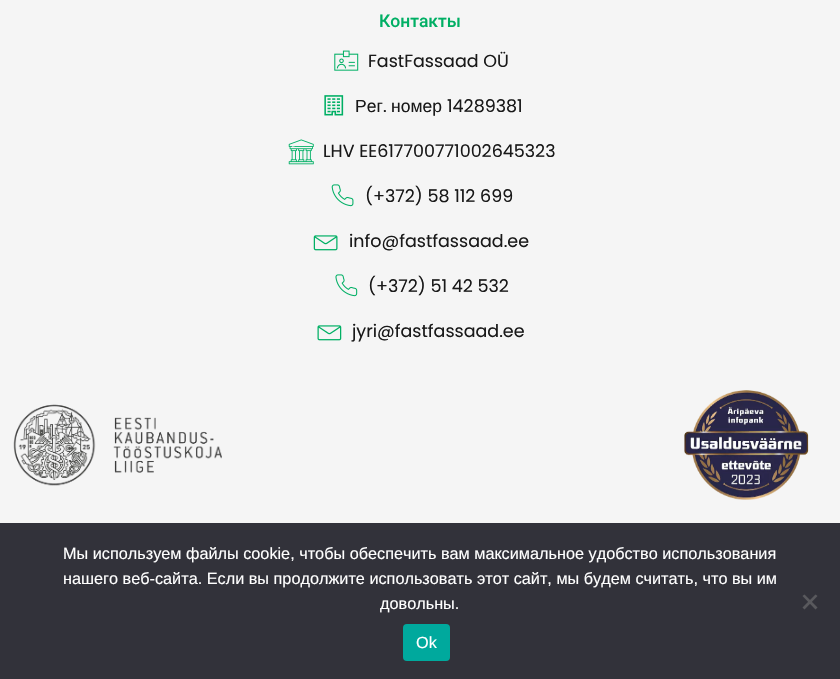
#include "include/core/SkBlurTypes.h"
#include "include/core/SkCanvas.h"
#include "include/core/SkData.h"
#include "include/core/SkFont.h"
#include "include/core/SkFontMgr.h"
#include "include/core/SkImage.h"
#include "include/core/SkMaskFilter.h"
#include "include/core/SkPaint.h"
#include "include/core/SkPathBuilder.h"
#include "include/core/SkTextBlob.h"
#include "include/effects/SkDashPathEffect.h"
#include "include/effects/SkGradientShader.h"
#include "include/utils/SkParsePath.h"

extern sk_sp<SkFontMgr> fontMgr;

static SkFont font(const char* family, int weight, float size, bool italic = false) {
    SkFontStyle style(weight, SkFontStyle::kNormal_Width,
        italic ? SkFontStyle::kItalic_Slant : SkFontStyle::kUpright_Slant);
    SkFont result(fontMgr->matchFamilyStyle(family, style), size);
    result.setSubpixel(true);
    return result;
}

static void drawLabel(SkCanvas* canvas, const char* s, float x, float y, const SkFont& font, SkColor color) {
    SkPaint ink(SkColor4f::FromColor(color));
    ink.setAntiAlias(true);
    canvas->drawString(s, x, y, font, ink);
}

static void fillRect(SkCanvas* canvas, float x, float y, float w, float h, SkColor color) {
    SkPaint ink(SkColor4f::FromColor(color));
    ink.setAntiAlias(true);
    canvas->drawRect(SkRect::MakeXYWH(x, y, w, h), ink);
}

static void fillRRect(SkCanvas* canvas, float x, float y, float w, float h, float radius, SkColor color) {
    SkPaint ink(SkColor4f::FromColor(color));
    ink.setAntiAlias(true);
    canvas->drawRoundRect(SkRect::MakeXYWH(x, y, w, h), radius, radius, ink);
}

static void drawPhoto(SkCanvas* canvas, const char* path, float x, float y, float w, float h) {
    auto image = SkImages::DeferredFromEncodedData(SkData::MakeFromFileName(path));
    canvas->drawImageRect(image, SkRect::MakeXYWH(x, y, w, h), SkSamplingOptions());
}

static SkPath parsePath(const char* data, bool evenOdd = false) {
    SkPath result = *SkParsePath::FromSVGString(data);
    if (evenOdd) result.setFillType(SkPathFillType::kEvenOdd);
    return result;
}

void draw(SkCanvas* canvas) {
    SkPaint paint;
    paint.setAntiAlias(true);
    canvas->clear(0xFFF5F5F5);
    SkFont font1 = font("Roboto", 500, 17.5f);
    drawLabel(canvas, "Контакты", 379, 27, font1, 0xFF00AF64);
    drawPhoto(canvas, "assets/img1.png", 334, 50, 25, 21);
    SkFont font2 = font("Poppins", 400, 17.5f);
    drawLabel(canvas, "FastFassaad OÜ", 368, 67, font2, 0xFF191919);
    drawPhoto(canvas, "assets/img2.png", 324, 95, 20, 21);
    SkFont font3 = font("Liberation Sans", 400, 17.5f);
    drawLabel(canvas, "Рег", 355, 112, font3, 0xFF191919);
    drawLabel(canvas, ".", 383, 112, font2, 0xFF191919);
    drawLabel(canvas, "номер", 391, 112, font3, 0xFF191919);
    drawLabel(canvas, "14289381", 447, 112, font2, 0xFF191919);
    drawPhoto(canvas, "assets/img3.png", 288, 139, 26, 26);
    drawLabel(canvas, "LHV EE617700771002645323", 323, 157, font2, 0xFF191919);
    drawPhoto(canvas, "assets/img4.png", 331, 184, 23, 23);
    drawLabel(canvas, "(+372) 58 112 699", 365, 202, font2, 0xFF191919);
    drawPhoto(canvas, "assets/img5.png", 313, 235, 25, 16);
    drawLabel(canvas, "info@fastfassaad.ee", 349, 247, font2, 0xFF191919);
    drawPhoto(canvas, "assets/img6.png", 335, 274, 23, 23);
    drawLabel(canvas, "(+372) 51 42 532", 368, 292, font2, 0xFF191919);
    drawPhoto(canvas, "assets/img7.png", 317, 325, 25, 16);
    drawLabel(canvas, "jyri@fastfassaad.ee", 352, 337, font2, 0xFF191919);
    drawPhoto(canvas, "assets/img8.png", 13, 404, 209, 82);
    drawPhoto(canvas, "assets/img9.png", 684, 390, 125, 110);
    fillRect(canvas, 0, 523, 840, 156, 0xFF32323A);
    SkFont font4 = font("Liberation Sans", 400, 16.25f);
    drawLabel(canvas, "Мы используем файлы cookie, чтобы обеспечить вам максимальное удобство использования", 63, 559, font4, 0xFFFFFFFF);
    drawLabel(canvas, "нашего веб-сайта. Если вы продолжите использовать этот сайт, мы будем считать, что вы им", 63, 584, font4, 0xFFFFFFFF);
    drawLabel(canvas, "довольны.", 380, 609, font4, 0xFFFFFFFF);
    paint.setColor(0xFF59595D);
    canvas->drawPath(parsePath("M815.5 594.5L817.5 596L804.5 609.5L802.5 607.5Z"), paint);
    canvas->drawPath(parsePath("M802.5 596L804.5 594.5L817.5 607.5L815.5 609.5Z"), paint);
    fillRRect(canvas, 403, 624, 47, 37, 4, 0xFF00A99D);
    drawLabel(canvas, "Ok", 416, 648, font4, 0xFFFFFFFF);
}
